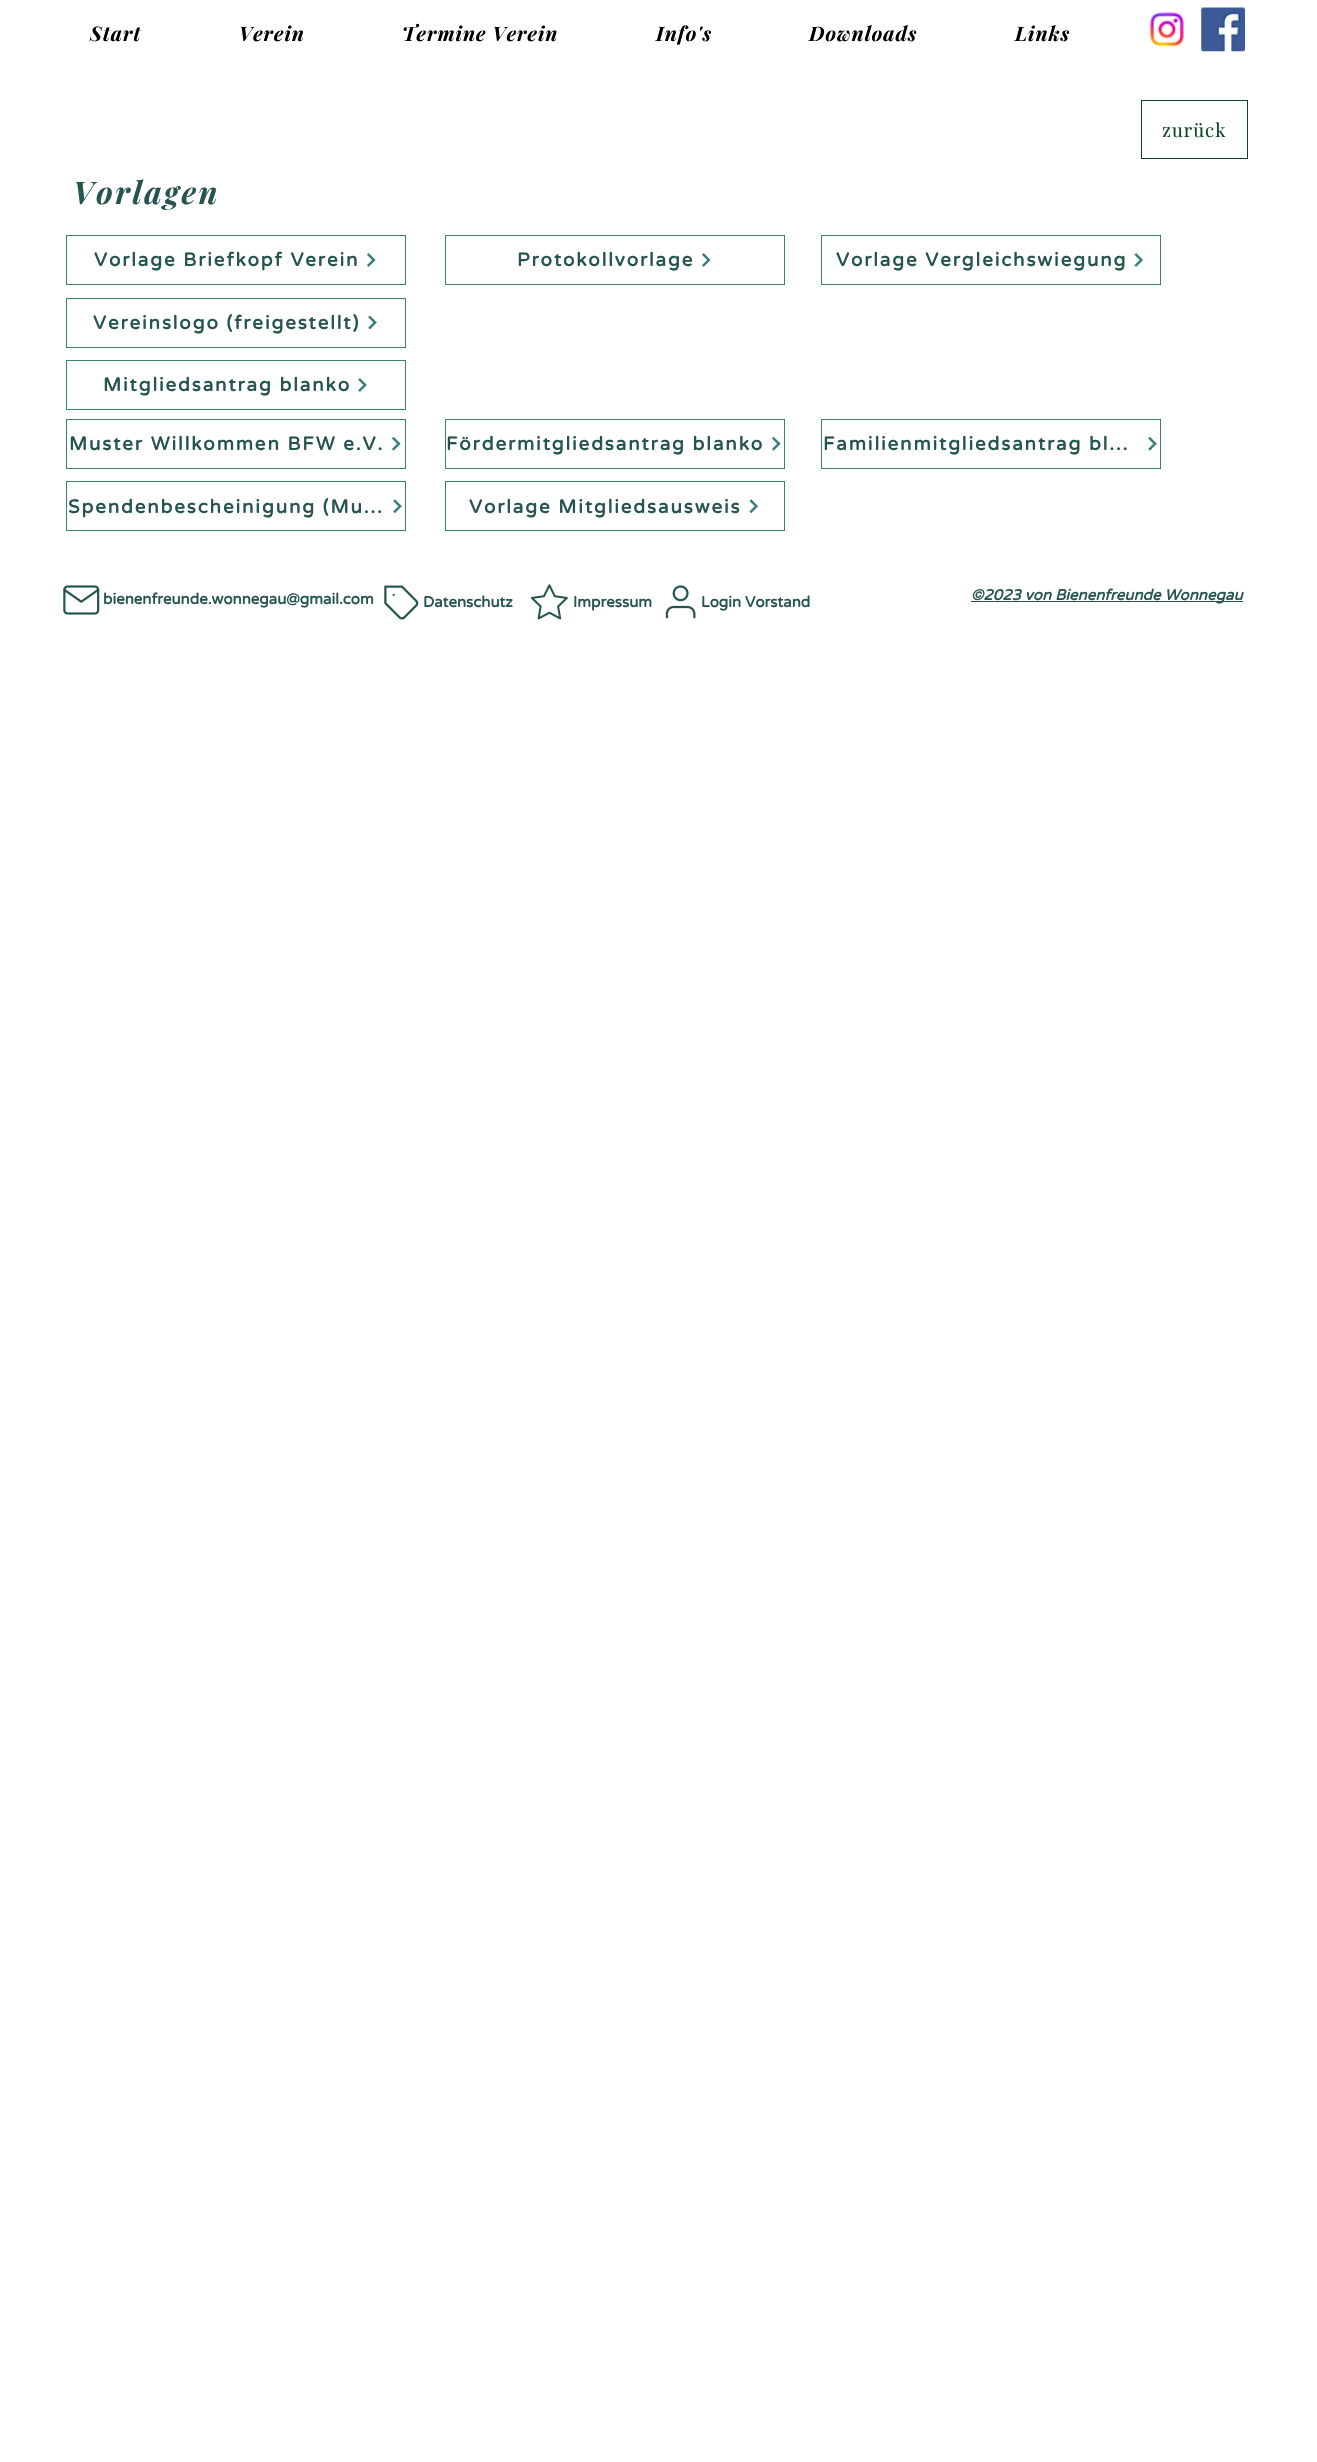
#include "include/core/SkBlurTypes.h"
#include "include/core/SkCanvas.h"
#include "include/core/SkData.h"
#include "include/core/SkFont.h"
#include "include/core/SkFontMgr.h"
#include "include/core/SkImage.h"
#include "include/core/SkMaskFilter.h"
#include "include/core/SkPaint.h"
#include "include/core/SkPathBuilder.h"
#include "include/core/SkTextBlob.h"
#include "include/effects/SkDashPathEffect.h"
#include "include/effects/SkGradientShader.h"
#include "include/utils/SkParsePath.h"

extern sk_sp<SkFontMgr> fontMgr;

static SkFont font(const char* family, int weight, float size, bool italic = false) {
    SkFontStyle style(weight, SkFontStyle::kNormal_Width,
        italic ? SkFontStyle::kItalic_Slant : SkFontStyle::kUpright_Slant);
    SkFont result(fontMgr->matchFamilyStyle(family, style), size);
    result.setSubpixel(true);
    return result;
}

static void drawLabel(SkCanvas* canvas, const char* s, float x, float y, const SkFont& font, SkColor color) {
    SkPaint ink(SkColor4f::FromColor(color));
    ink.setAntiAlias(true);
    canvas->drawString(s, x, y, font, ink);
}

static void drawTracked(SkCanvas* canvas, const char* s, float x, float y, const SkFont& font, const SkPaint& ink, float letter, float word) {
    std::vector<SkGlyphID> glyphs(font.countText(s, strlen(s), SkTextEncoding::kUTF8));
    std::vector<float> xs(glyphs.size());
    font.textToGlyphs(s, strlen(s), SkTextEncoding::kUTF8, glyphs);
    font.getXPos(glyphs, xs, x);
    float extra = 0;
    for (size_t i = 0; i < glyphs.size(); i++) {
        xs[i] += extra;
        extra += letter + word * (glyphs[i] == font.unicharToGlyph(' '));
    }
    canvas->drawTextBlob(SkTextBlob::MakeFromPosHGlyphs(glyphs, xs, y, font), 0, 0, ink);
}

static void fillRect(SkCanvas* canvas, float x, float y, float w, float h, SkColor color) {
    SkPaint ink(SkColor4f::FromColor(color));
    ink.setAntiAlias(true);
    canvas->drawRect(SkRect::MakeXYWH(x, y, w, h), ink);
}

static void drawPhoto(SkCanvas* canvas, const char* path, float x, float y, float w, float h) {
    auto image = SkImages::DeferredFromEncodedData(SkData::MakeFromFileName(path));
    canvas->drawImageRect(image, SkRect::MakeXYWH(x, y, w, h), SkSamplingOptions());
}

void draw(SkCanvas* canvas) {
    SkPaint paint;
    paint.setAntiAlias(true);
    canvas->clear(0xFFFFFFFF);
    SkFont font1 = font("Playfair Display", 700, 20, true);
    paint.setColor(0xFF000000);
    drawTracked(canvas, "Start", 90, 41, font1, paint, 1, 0);
    drawTracked(canvas, "Verein", 239, 41, font1, paint, 1, 0);
    drawTracked(canvas, "Termine Verein", 402, 41, font1, paint, 1, 0);
    drawTracked(canvas, "Info's", 656, 41, font1, paint, 1, 0);
    drawTracked(canvas, "Downloads", 809, 41, font1, paint, 1, 0);
    drawTracked(canvas, "Links", 1015, 41, font1, paint, 1, 0);
    drawPhoto(canvas, "assets/img1.png", 1149, 12, 35, 35);
    drawPhoto(canvas, "assets/img2.png", 1201, 7, 44, 45);
    paint.setStroke(true);
    paint.setStrokeWidth(1);
    paint.setColor(0xFF0C4426);
    canvas->drawRect(SkRect::MakeXYWH(1141.5f, 100.5f, 106, 58), paint);
    SkFont font2 = font("Playfair Display", 400, 18.75f);
    paint.setStroke(false);
    drawTracked(canvas, "zurück", 1162, 137, font2, paint, 1, 0);
    SkFont font3 = font("Playfair Display", 700, 31.25f, true);
    paint.setColor(0xFF26554F);
    drawTracked(canvas, "Vorlagen", 73, 204, font3, paint, 2.5f, 0);
    paint.setStroke(true);
    paint.setColor(0xFF397F77);
    canvas->drawRect(SkRect::MakeXYWH(66.5f, 235.5f, 339, 49), paint);
    SkFont font4 = font("Varela Round", 700, 18.75f);
    paint.setStroke(false);
    paint.setColor(0xFF26554F);
    drawTracked(canvas, "Vorlage Briefkopf Verein", 94, 266, font4, paint, 1.9f, 0);
    drawPhoto(canvas, "assets/img3.png", 367, 253, 9, 14);
    paint.setStroke(true);
    paint.setColor(0xFF397F77);
    canvas->drawRect(SkRect::MakeXYWH(445.5f, 235.5f, 339, 49), paint);
    paint.setStroke(false);
    paint.setColor(0xFF26554F);
    drawTracked(canvas, "Protokollvorlage", 517, 266, font4, paint, 1.9f, 0);
    drawPhoto(canvas, "assets/img3.png", 702, 253, 9, 14);
    paint.setStroke(true);
    paint.setColor(0xFF397F77);
    canvas->drawRect(SkRect::MakeXYWH(821.5f, 235.5f, 339, 49), paint);
    paint.setStroke(false);
    paint.setColor(0xFF26554F);
    drawTracked(canvas, "Vorlage Vergleichswiegung", 836, 266, font4, paint, 1.9f, 0);
    drawPhoto(canvas, "assets/img4.png", 1134, 253, 9, 14);
    paint.setStroke(true);
    paint.setColor(0xFF397F77);
    canvas->drawRect(SkRect::MakeXYWH(66.5f, 298.5f, 339, 49), paint);
    paint.setStroke(false);
    paint.setColor(0xFF26554F);
    drawTracked(canvas, "Vereinslogo (freigestellt)", 93, 329, font4, paint, 1.9f, 0);
    drawPhoto(canvas, "assets/img5.png", 368, 315, 9, 15);
    paint.setStroke(true);
    paint.setColor(0xFF397F77);
    canvas->drawRect(SkRect::MakeXYWH(66.5f, 360.5f, 339, 49), paint);
    paint.setStroke(false);
    paint.setColor(0xFF26554F);
    drawTracked(canvas, "Mitgliedsantrag blanko", 103, 391, font4, paint, 1.9f, 0);
    drawPhoto(canvas, "assets/img6.png", 358, 378, 9, 14);
    paint.setStroke(true);
    paint.setColor(0xFF397F77);
    canvas->drawRect(SkRect::MakeXYWH(66.5f, 419.5f, 339, 49), paint);
    paint.setStroke(false);
    paint.setColor(0xFF26554F);
    drawTracked(canvas, "Muster Willkommen BFW e.V.", 69, 450, font4, paint, 1.9f, 0);
    drawPhoto(canvas, "assets/img7.png", 392, 436, 9, 15);
    paint.setStroke(true);
    paint.setColor(0xFF397F77);
    canvas->drawRect(SkRect::MakeXYWH(445.5f, 419.5f, 339, 49), paint);
    paint.setStroke(false);
    paint.setColor(0xFF26554F);
    drawTracked(canvas, "Fördermitgliedsantrag blanko", 446, 450, font4, paint, 1.9f, 0);
    drawPhoto(canvas, "assets/img7.png", 772, 436, 9, 15);
    paint.setStroke(true);
    paint.setColor(0xFF397F77);
    canvas->drawRect(SkRect::MakeXYWH(821.5f, 419.5f, 339, 49), paint);
    paint.setStroke(false);
    paint.setColor(0xFF26554F);
    drawTracked(canvas, "Familienmitgliedsantrag bl…", 823, 450, font4, paint, 1.9f, 0);
    drawPhoto(canvas, "assets/img8.png", 1148, 436, 9, 15);
    paint.setStroke(true);
    paint.setColor(0xFF397F77);
    canvas->drawRect(SkRect::MakeXYWH(66.5f, 481.5f, 339, 49), paint);
    paint.setStroke(false);
    paint.setColor(0xFF26554F);
    drawTracked(canvas, "Spendenbescheinigung (Mu…", 68, 513, font4, paint, 1.9f, 0);
    drawPhoto(canvas, "assets/img9.png", 393, 499, 9, 14);
    paint.setStroke(true);
    paint.setColor(0xFF397F77);
    canvas->drawRect(SkRect::MakeXYWH(445.5f, 481.5f, 339, 49), paint);
    paint.setStroke(false);
    paint.setColor(0xFF26554F);
    drawTracked(canvas, "Vorlage Mitgliedsausweis", 469, 513, font4, paint, 1.9f, 0);
    drawPhoto(canvas, "assets/img10.png", 749, 499, 9, 14);
    drawPhoto(canvas, "assets/img11.png", 63, 585, 37, 30);
    SkFont font5 = font("Varela Round", 700, 15);
    drawLabel(canvas, "bienenfreunde.wonnegau@gmail.com", 103, 604, font5, 0xFF26554F);
    drawPhoto(canvas, "assets/img12.png", 384, 585, 35, 35);
    drawLabel(canvas, "Datenschutz", 423, 607, font5, 0xFF26554F);
    drawPhoto(canvas, "assets/img13.png", 530, 584, 38, 36);
    drawLabel(canvas, "Impressum", 573, 607, font5, 0xFF26554F);
    drawPhoto(canvas, "assets/img14.png", 665, 585, 31, 34);
    drawLabel(canvas, "Login Vorstand", 701, 607, font5, 0xFF26554F);
    fillRect(canvas, 971, 601, 272, 1, 0xFF26554F);
    SkFont font6 = font("Varela Round", 700, 15, true);
    drawLabel(canvas, "©2023 von Bienenfreunde Wonnegau", 971, 600, font6, 0xFF26554F);
}
